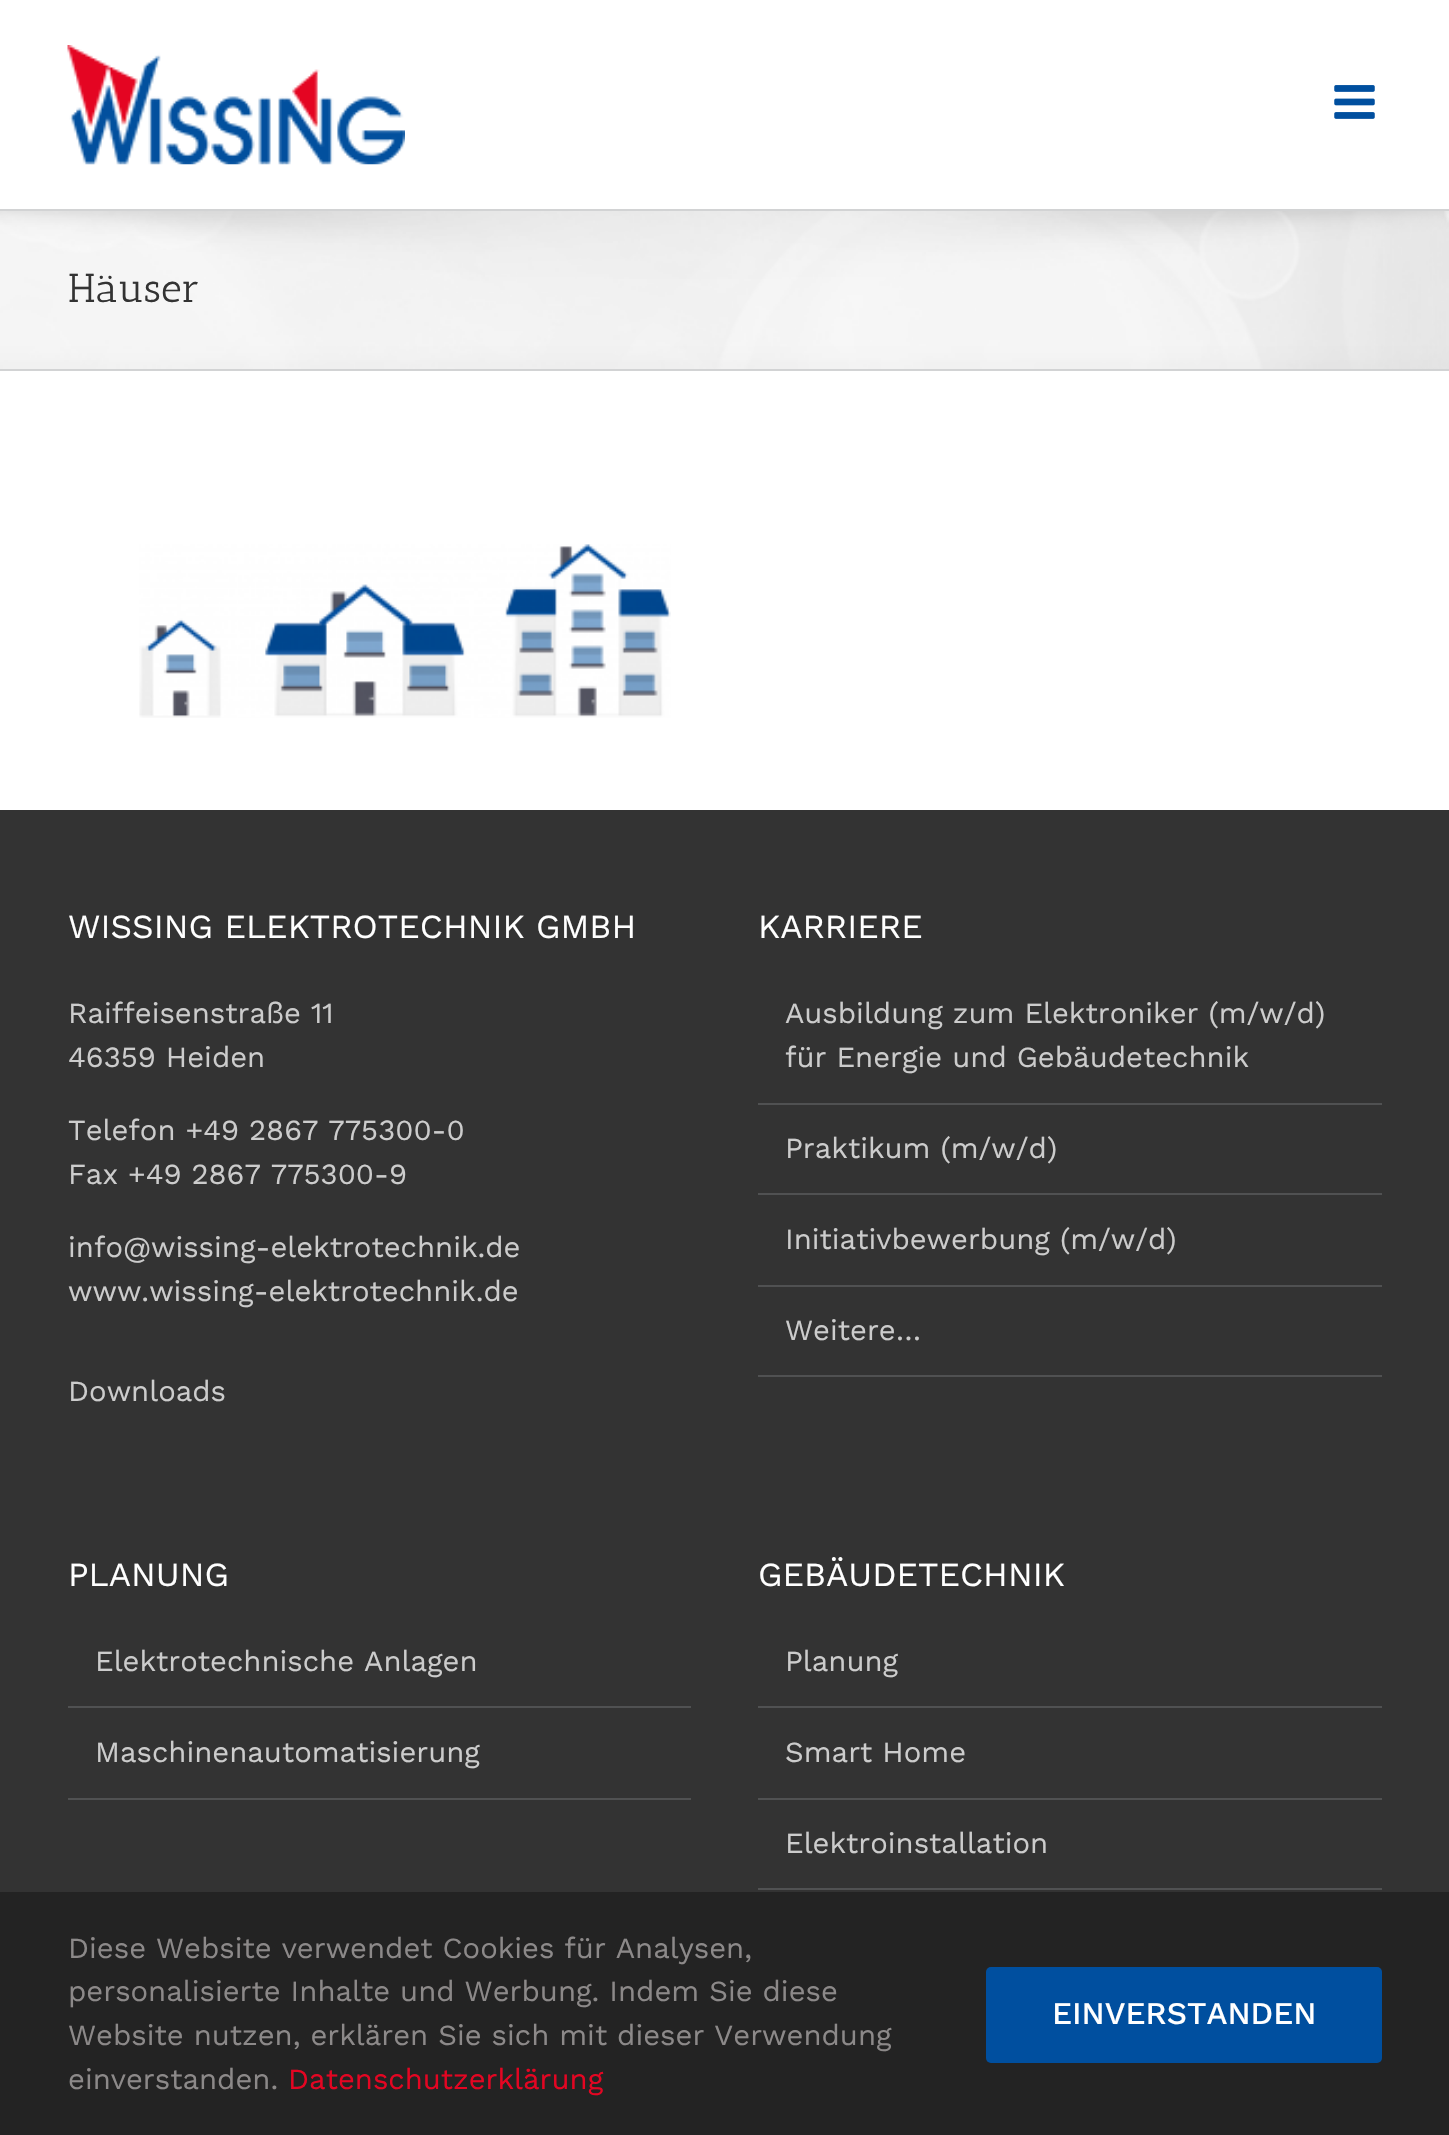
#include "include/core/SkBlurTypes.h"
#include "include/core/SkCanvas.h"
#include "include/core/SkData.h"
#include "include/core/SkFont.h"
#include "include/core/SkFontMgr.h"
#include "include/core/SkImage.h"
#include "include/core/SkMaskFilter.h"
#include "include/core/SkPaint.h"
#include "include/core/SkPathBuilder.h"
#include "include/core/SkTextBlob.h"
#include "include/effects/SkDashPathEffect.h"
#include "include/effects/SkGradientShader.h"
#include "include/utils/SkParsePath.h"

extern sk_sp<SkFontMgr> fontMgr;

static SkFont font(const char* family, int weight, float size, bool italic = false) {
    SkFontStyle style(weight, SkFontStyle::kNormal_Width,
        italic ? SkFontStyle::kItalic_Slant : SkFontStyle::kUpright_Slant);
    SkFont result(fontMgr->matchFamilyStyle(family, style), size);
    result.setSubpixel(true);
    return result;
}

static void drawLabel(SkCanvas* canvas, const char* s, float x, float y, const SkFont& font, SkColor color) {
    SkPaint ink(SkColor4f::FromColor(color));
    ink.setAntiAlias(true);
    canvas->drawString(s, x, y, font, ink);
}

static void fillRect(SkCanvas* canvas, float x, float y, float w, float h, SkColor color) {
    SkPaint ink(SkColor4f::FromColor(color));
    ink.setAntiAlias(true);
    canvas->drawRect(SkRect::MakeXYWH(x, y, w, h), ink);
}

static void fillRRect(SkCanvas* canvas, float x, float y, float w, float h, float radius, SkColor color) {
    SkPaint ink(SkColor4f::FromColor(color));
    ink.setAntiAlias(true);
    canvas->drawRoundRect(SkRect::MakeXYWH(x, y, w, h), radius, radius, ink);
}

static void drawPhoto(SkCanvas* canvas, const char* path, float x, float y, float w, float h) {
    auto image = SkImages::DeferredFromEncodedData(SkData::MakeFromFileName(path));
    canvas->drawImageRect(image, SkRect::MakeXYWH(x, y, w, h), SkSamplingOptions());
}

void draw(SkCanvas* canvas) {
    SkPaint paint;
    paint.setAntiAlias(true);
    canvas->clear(0xFFFFFFFF);
    drawPhoto(canvas, "assets/img1.png", 67, 45, 338, 120);
    drawPhoto(canvas, "assets/img2.png", 1334, 85, 41, 34);
    fillRect(canvas, 0, 211, 1449, 158, 0xFFF6F6F6);
    drawPhoto(canvas, "assets/img3.png", 0, 211, 1449, 158);
    fillRect(canvas, 0, 209, 1449, 2, 0xFFD2D3D4);
    fillRect(canvas, 0, 369, 1449, 2, 0xFFD2D3D4);
    SkFont font1 = font("Antic Slab", 400, 40.5f);
    drawLabel(canvas, "Häuser", 68, 302, font1, 0xFF333333);
    drawPhoto(canvas, "assets/img4.png", 139, 544, 532, 174);
    fillRect(canvas, 0, 810, 1449, 1082, 0xFF333333);
    SkFont font2 = font("Work Sans", 400, 33.75f);
    drawLabel(canvas, "WISSING ELEKTROTECHNIK GMBH", 68, 938, font2, 0xFFFFFFFF);
    SkFont font3 = font("Work Sans", 400, 29.25f);
    drawLabel(canvas, "Raiffeisenstraße 11", 68, 1023, font3, 0xFFCCCCCC);
    drawLabel(canvas, "46359 Heiden", 68, 1067, font3, 0xFFCCCCCC);
    drawLabel(canvas, "Telefon +49 2867 775300-0", 68, 1140, font3, 0xFFCCCCCC);
    drawLabel(canvas, "Fax +49 2867 775300-9", 68, 1184, font3, 0xFFCCCCCC);
    drawLabel(canvas, "info@wissing-elektrotechnik.de", 68, 1257, font3, 0xFFCCCCCC);
    drawLabel(canvas, "www.wissing-elektrotechnik.de", 68, 1301, font3, 0xFFCCCCCC);
    drawLabel(canvas, "Downloads", 68, 1401, font3, 0xFFCCCCCC);
    drawLabel(canvas, "KARRIERE", 758, 938, font2, 0xFFFFFFFF);
    fillRect(canvas, 758, 1103, 624, 2, 0xFF505152);
    drawLabel(canvas, "Ausbildung zum Elektroniker (m/w/d)", 785, 1023, font3, 0xFFCCCCCC);
    drawLabel(canvas, "für Energie und Gebäudetechnik", 785, 1067, font3, 0xFFCCCCCC);
    fillRect(canvas, 758, 1193, 624, 2, 0xFF505152);
    drawLabel(canvas, "Praktikum (m/w/d)", 785, 1158, font3, 0xFFCCCCCC);
    fillRect(canvas, 758, 1285, 624, 2, 0xFF505152);
    drawLabel(canvas, "Initiativbewerbung (m/w/d)", 785, 1249, font3, 0xFFCCCCCC);
    fillRect(canvas, 758, 1375, 624, 2, 0xFF505152);
    drawLabel(canvas, "Weitere…", 785, 1340, font3, 0xFFCCCCCC);
    drawLabel(canvas, "PLANUNG", 68, 1586, font2, 0xFFFFFFFF);
    fillRect(canvas, 68, 1706, 623, 2, 0xFF505152);
    drawLabel(canvas, "Elektrotechnische Anlagen", 95, 1671, font3, 0xFFCCCCCC);
    fillRect(canvas, 68, 1798, 623, 2, 0xFF505152);
    drawLabel(canvas, "Maschinenautomatisierung", 95, 1762, font3, 0xFFCCCCCC);
    drawLabel(canvas, "GEBÄUDETECHNIK", 758, 1586, font2, 0xFFFFFFFF);
    fillRect(canvas, 758, 1706, 624, 2, 0xFF505152);
    drawLabel(canvas, "Planung", 785, 1671, font3, 0xFFCCCCCC);
    fillRect(canvas, 758, 1798, 624, 2, 0xFF505152);
    drawLabel(canvas, "Smart Home", 785, 1762, font3, 0xFFCCCCCC);
    fillRect(canvas, 758, 1888, 624, 2, 0xFF505152);
    drawLabel(canvas, "Elektroinstallation", 785, 1853, font3, 0xFFCCCCCC);
    fillRect(canvas, 0, 1892, 1449, 243, 0xFF232323);
    drawLabel(canvas, "Diese Website verwendet Cookies für Analysen,", 68, 1958, font3, 0xFF8C8989);
    drawLabel(canvas, "personalisierte Inhalte und Werbung. Indem Sie diese", 68, 2001, font3, 0xFF8C8989);
    drawLabel(canvas, "Website nutzen, erklären Sie sich mit dieser Verwendung", 68, 2045, font3, 0xFF8C8989);
    drawLabel(canvas, "einverstanden.", 68, 2089, font3, 0xFF8C8989);
    drawLabel(canvas, "Datenschutzerklärung", 288, 2089, font3, 0xFFE40522);
    fillRRect(canvas, 986, 1967, 396, 96, 5, 0xFF004F9F);
    SkFont font4 = font("Work Sans", 500, 31.5f);
    drawLabel(canvas, "EINVERSTANDEN", 1052, 2024, font4, 0xFFFFFFFF);
}
